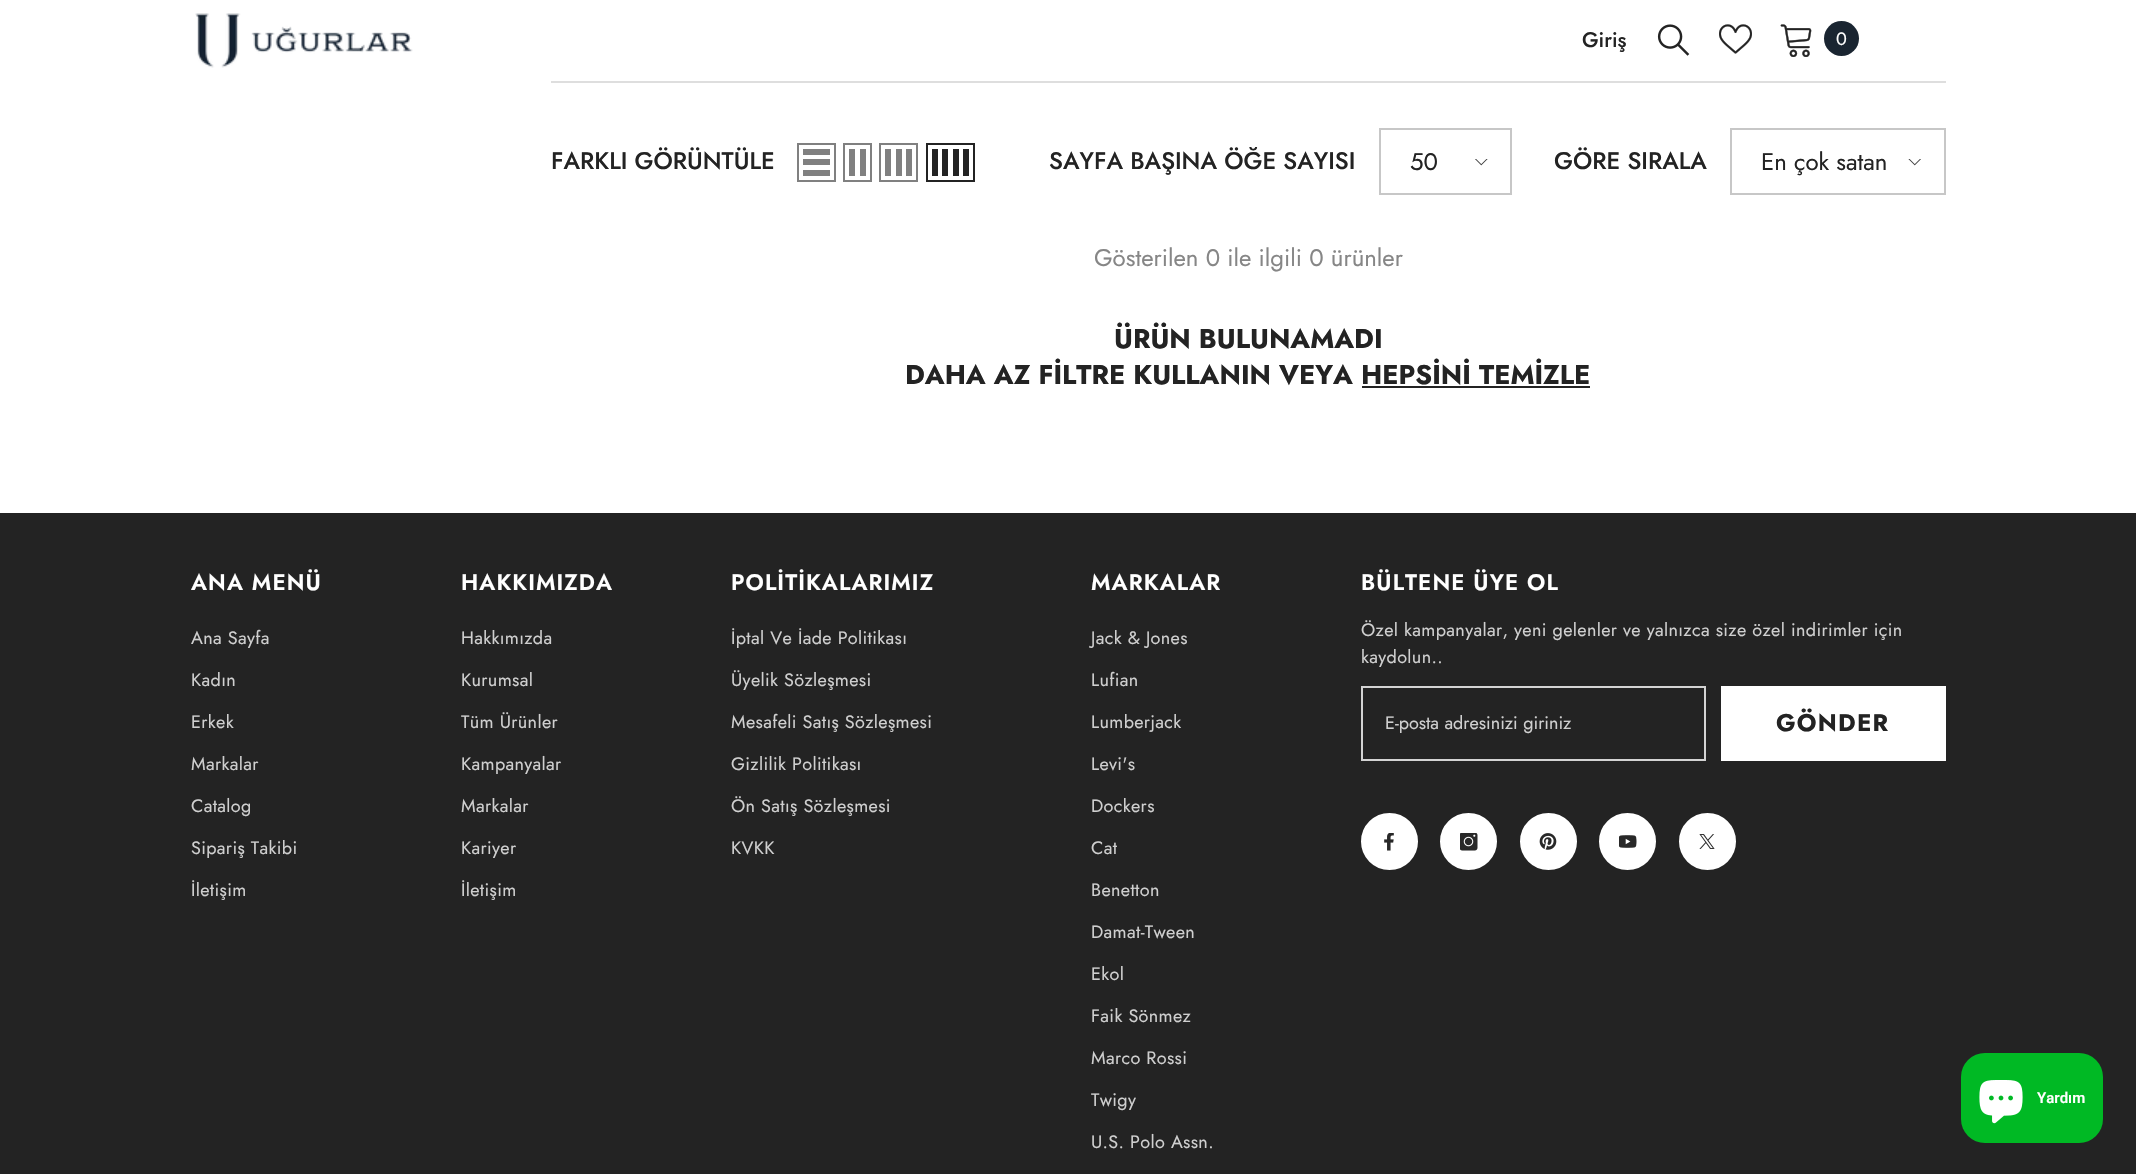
#include "include/core/SkBlurTypes.h"
#include "include/core/SkCanvas.h"
#include "include/core/SkData.h"
#include "include/core/SkFont.h"
#include "include/core/SkFontMgr.h"
#include "include/core/SkImage.h"
#include "include/core/SkMaskFilter.h"
#include "include/core/SkPaint.h"
#include "include/core/SkPathBuilder.h"
#include "include/core/SkTextBlob.h"
#include "include/effects/SkDashPathEffect.h"
#include "include/effects/SkGradientShader.h"
#include "include/utils/SkParsePath.h"

extern sk_sp<SkFontMgr> fontMgr;

static SkFont font(const char* family, int weight, float size, bool italic = false) {
    SkFontStyle style(weight, SkFontStyle::kNormal_Width,
        italic ? SkFontStyle::kItalic_Slant : SkFontStyle::kUpright_Slant);
    SkFont result(fontMgr->matchFamilyStyle(family, style), size);
    result.setSubpixel(true);
    return result;
}

static void drawLabel(SkCanvas* canvas, const char* s, float x, float y, const SkFont& font, SkColor color) {
    SkPaint ink(SkColor4f::FromColor(color));
    ink.setAntiAlias(true);
    canvas->drawString(s, x, y, font, ink);
}

static void drawTracked(SkCanvas* canvas, const char* s, float x, float y, const SkFont& font, const SkPaint& ink, float letter, float word) {
    std::vector<SkGlyphID> glyphs(font.countText(s, strlen(s), SkTextEncoding::kUTF8));
    std::vector<float> xs(glyphs.size());
    font.textToGlyphs(s, strlen(s), SkTextEncoding::kUTF8, glyphs);
    font.getXPos(glyphs, xs, x);
    float extra = 0;
    for (size_t i = 0; i < glyphs.size(); i++) {
        xs[i] += extra;
        extra += letter + word * (glyphs[i] == font.unicharToGlyph(' '));
    }
    canvas->drawTextBlob(SkTextBlob::MakeFromPosHGlyphs(glyphs, xs, y, font), 0, 0, ink);
}

static void fillRect(SkCanvas* canvas, float x, float y, float w, float h, SkColor color) {
    SkPaint ink(SkColor4f::FromColor(color));
    ink.setAntiAlias(true);
    canvas->drawRect(SkRect::MakeXYWH(x, y, w, h), ink);
}

static void fillRRect(SkCanvas* canvas, float x, float y, float w, float h, float radius, SkColor color) {
    SkPaint ink(SkColor4f::FromColor(color));
    ink.setAntiAlias(true);
    canvas->drawRoundRect(SkRect::MakeXYWH(x, y, w, h), radius, radius, ink);
}

static void drawPhoto(SkCanvas* canvas, const char* path, float x, float y, float w, float h) {
    auto image = SkImages::DeferredFromEncodedData(SkData::MakeFromFileName(path));
    canvas->drawImageRect(image, SkRect::MakeXYWH(x, y, w, h), SkSamplingOptions());
}

void draw(SkCanvas* canvas) {
    SkPaint paint;
    paint.setAntiAlias(true);
    canvas->clear(0xFFFFFFFF);
    drawPhoto(canvas, "assets/img1.png", 195, 13, 218, 55);
    SkFont font1 = font("Jost", 500, 21);
    drawLabel(canvas, "Giriş", 1582, 47, font1, 0xFF232323);
    drawPhoto(canvas, "assets/img2.png", 1657, 24, 33, 32);
    drawPhoto(canvas, "assets/img3.png", 1719, 24, 33, 30);
    drawPhoto(canvas, "assets/img4.png", 1780, 24, 32, 33);
    paint.setColor(0xFF1A2531);
    canvas->drawCircle(1841.5f, 38.5f, 17.5f, paint);
    SkFont font2 = font("Jost", 400, 18);
    drawLabel(canvas, "0", 1836, 45, font2, 0xFFFFFFFF);
    fillRect(canvas, 551, 81, 1395, 2, 0xFFDEDEDE);
    SkFont font3 = font("Jost", 500, 24);
    drawLabel(canvas, "FARKLI GÖRÜNTÜLE", 551, 169, font3, 0xFF232323);
    paint.setStroke(true);
    paint.setStrokeWidth(2);
    paint.setColor(0xFF808080);
    canvas->drawRect(SkRect::MakeXYWH(798, 144, 37, 37), paint);
    fillRect(canvas, 803, 170, 27, 6, 0xFF808080);
    fillRect(canvas, 803, 159, 27, 6, 0xFF808080);
    fillRect(canvas, 803, 149, 27, 6, 0xFF808080);
    canvas->drawRect(SkRect::MakeXYWH(844, 144, 27, 37), paint);
    fillRect(canvas, 860, 149, 6, 27, 0xFF808080);
    fillRect(canvas, 849, 149, 6, 27, 0xFF808080);
    canvas->drawRect(SkRect::MakeXYWH(880, 144, 37, 37), paint);
    fillRect(canvas, 906, 149, 6, 27, 0xFF808080);
    fillRect(canvas, 896, 149, 6, 27, 0xFF808080);
    fillRect(canvas, 885, 149, 6, 27, 0xFF808080);
    paint.setColor(0xFF232323);
    canvas->drawRect(SkRect::MakeXYWH(927, 144, 47, 37), paint);
    fillRect(canvas, 963, 149, 6, 27, 0xFF232323);
    fillRect(canvas, 953, 149, 6, 27, 0xFF232323);
    fillRect(canvas, 942, 149, 6, 27, 0xFF232323);
    fillRect(canvas, 932, 149, 6, 27, 0xFF232323);
    drawLabel(canvas, "SAYFA BAŞINA ÖĞE SAYISI", 1049, 169, font3, 0xFF232323);
    paint.setColor(0xFFC7C7C7);
    canvas->drawRect(SkRect::MakeXYWH(1380, 129, 131, 65), paint);
    SkFont font4 = font("Jost", 400, 24);
    drawLabel(canvas, "50", 1410, 170, font4, 0xFF232323);
    drawPhoto(canvas, "assets/img5.png", 1475, 159, 13, 7);
    drawLabel(canvas, "GÖRE SIRALA", 1554, 169, font3, 0xFF232323);
    canvas->drawRect(SkRect::MakeXYWH(1731, 129, 214, 65), paint);
    drawLabel(canvas, "En çok satan", 1761, 170, font4, 0xFF232323);
    drawPhoto(canvas, "assets/img6.png", 1908, 159, 13, 7);
    drawLabel(canvas, "Gösterilen 0 ile ilgili 0 ürünler", 1094, 266, font4, 0xFF868686);
    SkFont font5 = font("Jost", 700, 27);
    drawLabel(canvas, "ÜRÜN BULUNAMADI", 1114, 348, font5, 0xFF232323);
    drawLabel(canvas, "DAHA AZ FİLTRE KULLANIN VEYA HEPSİNİ TEMİZLE", 905, 384, font5, 0xFF232323);
    fillRect(canvas, 1362, 386, 228, 2, 0xFF232323);
    fillRect(canvas, 0, 513, 2136, 661, 0xFF232323);
    SkFont font6 = font("Jost", 600, 22.5f);
    paint.setStroke(false);
    paint.setColor(0xFFFFFFFF);
    drawTracked(canvas, "ANA MENÜ", 191, 590, font6, paint, 1.1f, 0);
    paint.setColor(0xFFCFCFCF);
    drawTracked(canvas, "Ana Sayfa", 191, 644, font2, paint, 0.35f, 0);
    drawTracked(canvas, "Kadın", 191, 686, font2, paint, 0.35f, 0);
    drawTracked(canvas, "Erkek", 191, 728, font2, paint, 0.35f, 0);
    drawTracked(canvas, "Markalar", 191, 770, font2, paint, 0.35f, 0);
    drawTracked(canvas, "Catalog", 191, 812, font2, paint, 0.35f, 0);
    drawTracked(canvas, "Sipariş Takibi", 191, 854, font2, paint, 0.35f, 0);
    drawTracked(canvas, "İletişim", 191, 896, font2, paint, 0.35f, 0);
    paint.setColor(0xFFFFFFFF);
    drawTracked(canvas, "HAKKIMIZDA", 461, 590, font6, paint, 1.1f, 0);
    paint.setColor(0xFFCFCFCF);
    drawTracked(canvas, "Hakkımızda", 461, 644, font2, paint, 0.35f, 0);
    drawTracked(canvas, "Kurumsal", 461, 686, font2, paint, 0.35f, 0);
    drawTracked(canvas, "Tüm Ürünler", 461, 728, font2, paint, 0.35f, 0);
    drawTracked(canvas, "Kampanyalar", 461, 770, font2, paint, 0.35f, 0);
    drawTracked(canvas, "Markalar", 461, 812, font2, paint, 0.35f, 0);
    drawTracked(canvas, "Kariyer", 461, 854, font2, paint, 0.35f, 0);
    drawTracked(canvas, "İletişim", 461, 896, font2, paint, 0.35f, 0);
    paint.setColor(0xFFFFFFFF);
    drawTracked(canvas, "POLİTİKALARIMIZ", 731, 590, font6, paint, 1.1f, 0);
    paint.setColor(0xFFCFCFCF);
    drawTracked(canvas, "İptal Ve İade Politikası", 731, 644, font2, paint, 0.35f, 0);
    drawTracked(canvas, "Üyelik Sözleşmesi", 731, 686, font2, paint, 0.35f, 0);
    drawTracked(canvas, "Mesafeli Satış Sözleşmesi", 731, 728, font2, paint, 0.35f, 0);
    drawTracked(canvas, "Gizlilik Politikası", 731, 770, font2, paint, 0.35f, 0);
    drawTracked(canvas, "Ön Satış Sözleşmesi", 731, 812, font2, paint, 0.35f, 0);
    drawTracked(canvas, "KVKK", 731, 854, font2, paint, 0.35f, 0);
    paint.setColor(0xFFFFFFFF);
    drawTracked(canvas, "MARKALAR", 1091, 590, font6, paint, 1.1f, 0);
    paint.setColor(0xFFCFCFCF);
    drawTracked(canvas, "Jack & Jones", 1091, 644, font2, paint, 0.35f, 0);
    drawTracked(canvas, "Lufian", 1091, 686, font2, paint, 0.35f, 0);
    drawTracked(canvas, "Lumberjack", 1091, 728, font2, paint, 0.35f, 0);
    drawTracked(canvas, "Levi's", 1091, 770, font2, paint, 0.35f, 0);
    drawTracked(canvas, "Dockers", 1091, 812, font2, paint, 0.35f, 0);
    drawTracked(canvas, "Cat", 1091, 854, font2, paint, 0.35f, 0);
    drawTracked(canvas, "Benetton", 1091, 896, font2, paint, 0.35f, 0);
    drawTracked(canvas, "Damat-Tween", 1091, 938, font2, paint, 0.35f, 0);
    drawTracked(canvas, "Ekol", 1091, 980, font2, paint, 0.35f, 0);
    drawTracked(canvas, "Faik Sönmez", 1091, 1022, font2, paint, 0.35f, 0);
    drawTracked(canvas, "Marco Rossi", 1091, 1064, font2, paint, 0.35f, 0);
    drawTracked(canvas, "Twigy", 1091, 1106, font2, paint, 0.35f, 0);
    drawTracked(canvas, "U.S. Polo Assn.", 1091, 1148, font2, paint, 0.35f, 0);
    paint.setColor(0xFFFFFFFF);
    drawTracked(canvas, "BÜLTENE ÜYE OL", 1361, 590, font6, paint, 1.1f, 0);
    paint.setColor(0xFFCFCFCF);
    drawTracked(canvas, "Özel kampanyalar, yeni gelenler ve yalnızca size özel indirimler için", 1361, 636, font2, paint, 0.35f, 0);
    drawTracked(canvas, "kaydolun..", 1361, 663, font2, paint, 0.35f, 0);
    paint.setStroke(true);
    paint.setColor(0xFFD3D3D3);
    canvas->drawRect(SkRect::MakeXYWH(1362, 687, 343, 73), paint);
    drawLabel(canvas, "E-posta adresinizi giriniz", 1385, 729, font2, 0xFFCFCFCF);
    fillRect(canvas, 1721, 686, 225, 75, 0xFFFFFFFF);
    SkFont font7 = font("Jost", 700, 24);
    paint.setStroke(false);
    paint.setColor(0xFF232323);
    drawTracked(canvas, "GÖNDER", 1776, 731, font7, paint, 1.25f, 0);
    paint.setColor(0xFFFFFFFF);
    canvas->drawCircle(1389.5f, 841.5f, 27.5f, paint);
    paint.setStroke(true);
    canvas->drawCircle(1389.5f, 841.5f, 27.5f, paint);
    drawPhoto(canvas, "assets/img7.png", 1384, 833, 10, 18);
    paint.setStroke(false);
    canvas->drawCircle(1468.5f, 841.5f, 27.5f, paint);
    paint.setStroke(true);
    canvas->drawCircle(1468.5f, 841.5f, 27.5f, paint);
    drawPhoto(canvas, "assets/img8.png", 1460, 833, 18, 18);
    paint.setStroke(false);
    canvas->drawCircle(1548.5f, 841.5f, 27.5f, paint);
    paint.setStroke(true);
    canvas->drawCircle(1548.5f, 841.5f, 27.5f, paint);
    drawPhoto(canvas, "assets/img9.png", 1539, 833, 18, 17);
    paint.setStroke(false);
    canvas->drawCircle(1627.5f, 841.5f, 27.5f, paint);
    paint.setStroke(true);
    canvas->drawCircle(1627.5f, 841.5f, 27.5f, paint);
    drawPhoto(canvas, "assets/img10.png", 1619, 835, 18, 13);
    paint.setStroke(false);
    canvas->drawCircle(1707.5f, 841.5f, 27.5f, paint);
    paint.setStroke(true);
    canvas->drawCircle(1707.5f, 841.5f, 27.5f, paint);
    drawPhoto(canvas, "assets/img11.png", 1699, 834, 16, 15);
    fillRRect(canvas, 1961, 1053, 142, 90, 24, 0xFF00B924);
    drawPhoto(canvas, "assets/img12.png", 1979, 1080, 44, 44);
    SkFont font8 = font("Roboto", 600, 15);
    drawLabel(canvas, "Yardım", 2037, 1103, font8, 0xFFFFFFFF);
}
